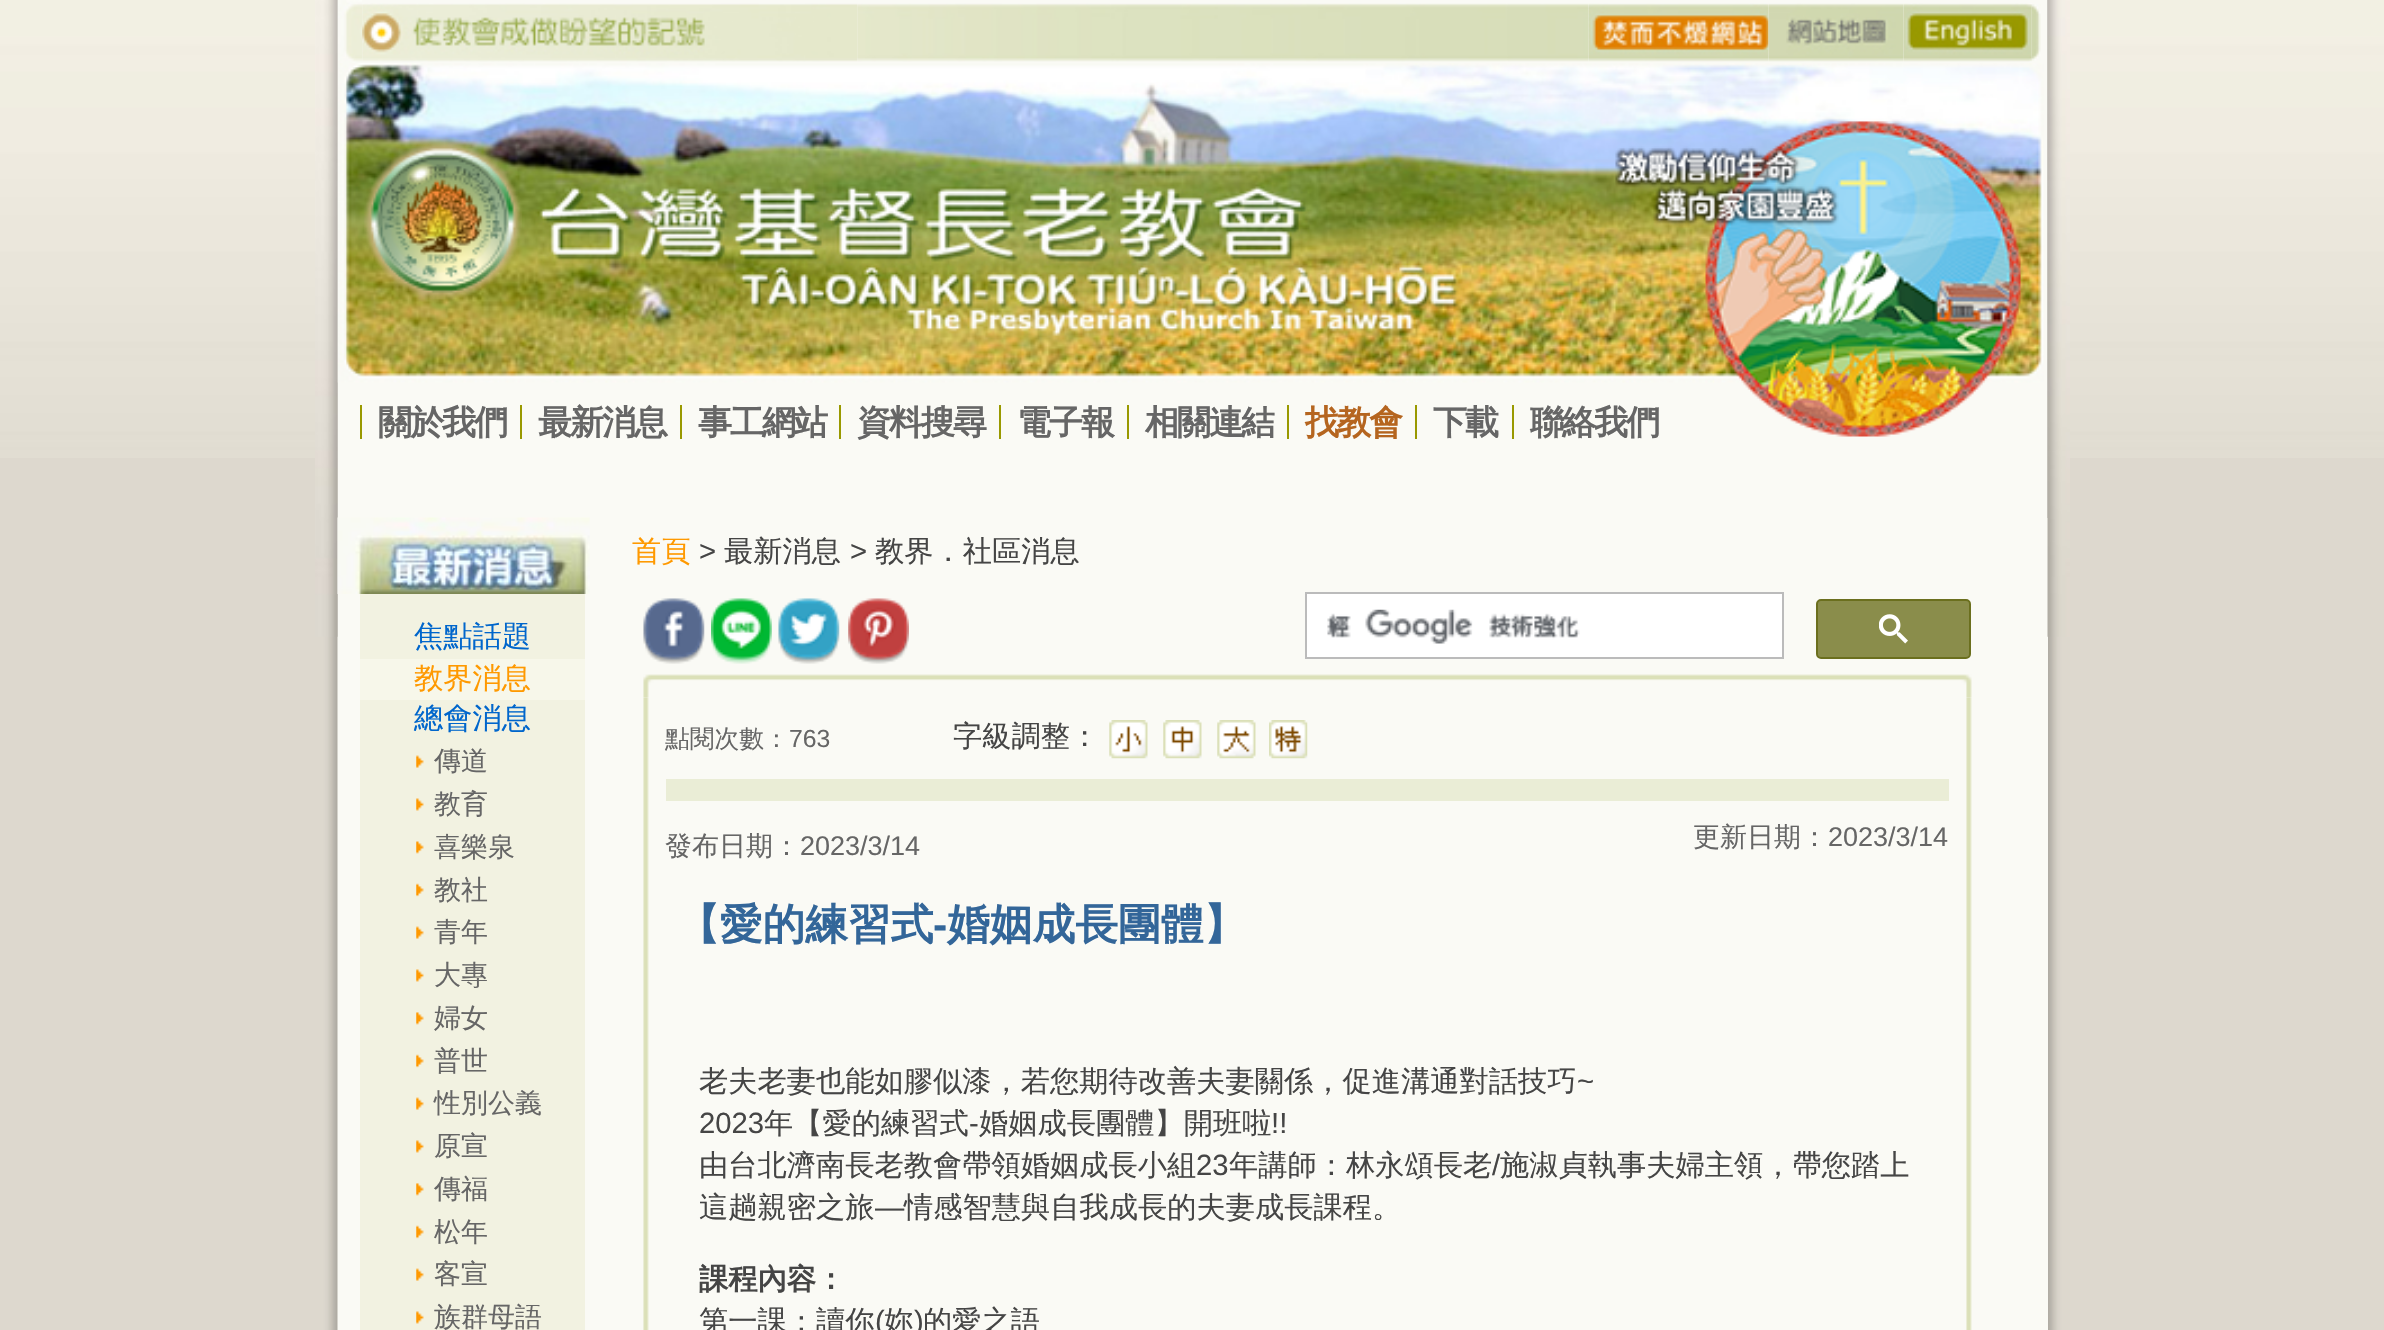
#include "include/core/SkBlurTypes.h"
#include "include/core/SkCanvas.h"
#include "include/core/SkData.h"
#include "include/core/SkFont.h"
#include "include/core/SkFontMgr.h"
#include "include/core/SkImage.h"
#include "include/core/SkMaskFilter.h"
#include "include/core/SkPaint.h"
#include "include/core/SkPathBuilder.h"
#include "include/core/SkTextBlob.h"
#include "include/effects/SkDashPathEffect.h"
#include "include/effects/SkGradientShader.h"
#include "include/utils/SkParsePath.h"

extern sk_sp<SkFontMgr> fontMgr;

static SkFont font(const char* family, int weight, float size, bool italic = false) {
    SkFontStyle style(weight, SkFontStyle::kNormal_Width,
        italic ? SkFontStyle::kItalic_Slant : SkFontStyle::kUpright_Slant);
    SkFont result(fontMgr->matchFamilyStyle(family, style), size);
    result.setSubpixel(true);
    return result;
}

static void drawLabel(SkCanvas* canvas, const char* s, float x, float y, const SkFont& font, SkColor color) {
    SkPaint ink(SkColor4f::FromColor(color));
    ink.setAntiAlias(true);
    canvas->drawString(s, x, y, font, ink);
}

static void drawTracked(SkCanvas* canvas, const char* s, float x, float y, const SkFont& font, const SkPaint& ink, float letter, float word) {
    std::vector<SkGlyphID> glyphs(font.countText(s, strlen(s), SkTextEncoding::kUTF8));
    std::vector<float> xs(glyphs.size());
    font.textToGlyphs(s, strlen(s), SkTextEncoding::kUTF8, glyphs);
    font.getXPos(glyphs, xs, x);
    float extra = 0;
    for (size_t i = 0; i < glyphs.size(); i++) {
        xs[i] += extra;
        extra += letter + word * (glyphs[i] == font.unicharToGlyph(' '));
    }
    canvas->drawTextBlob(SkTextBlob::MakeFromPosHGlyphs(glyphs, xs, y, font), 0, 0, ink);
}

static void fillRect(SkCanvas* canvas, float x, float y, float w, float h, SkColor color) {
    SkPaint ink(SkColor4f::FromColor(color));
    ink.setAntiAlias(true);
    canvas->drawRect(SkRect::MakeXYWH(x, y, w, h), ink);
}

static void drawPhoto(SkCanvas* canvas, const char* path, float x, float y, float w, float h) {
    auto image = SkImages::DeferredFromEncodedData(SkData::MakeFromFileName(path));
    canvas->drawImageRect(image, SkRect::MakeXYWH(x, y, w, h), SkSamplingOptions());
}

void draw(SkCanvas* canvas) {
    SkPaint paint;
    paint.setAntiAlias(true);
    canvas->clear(0xFFDDD8CE);
    drawPhoto(canvas, "assets/img1.png", 0, 0, 2384, 458);
    fillRect(canvas, 337, 0, 1711, 1330, 0xFFFAFAF5);
    drawPhoto(canvas, "assets/img4.png", 315, 0, 23, 1330);
    drawPhoto(canvas, "assets/img13.png", 337, 63, 1707, 320);
    drawPhoto(canvas, "assets/img2.png", 364, 142, 158, 157);
    drawPhoto(canvas, "assets/img3.png", 1615, 121, 406, 316);
    drawPhoto(canvas, "assets/img6.png", 337, 0, 26, 63);
    drawPhoto(canvas, "assets/img5.png", 315, 0, 23, 637);
    drawPhoto(canvas, "assets/img8.png", 857, 3, 732, 59);
    drawPhoto(canvas, "assets/img7.png", 362, 3, 496, 59);
    drawPhoto(canvas, "assets/img9.png", 1588, 3, 181, 59);
    drawPhoto(canvas, "assets/img10.png", 1768, 3, 136, 59);
    drawPhoto(canvas, "assets/img12.png", 2031, 4, 10, 57);
    drawPhoto(canvas, "assets/img11.png", 1903, 3, 129, 59);
    fillRect(canvas, 360, 405, 2, 34, 0xFF999900);
    SkFont font1 = font("WenQuanYi Zen Hei", 700, 34);
    paint.setColor(0xFF666666);
    drawTracked(canvas, "關於我們", 378, 434, font1, paint, -2, 0);
    fillRect(canvas, 520, 405, 2, 34, 0xFF999900);
    drawTracked(canvas, "最新消息", 538, 434, font1, paint, -2, 0);
    fillRect(canvas, 680, 405, 2, 34, 0xFF999900);
    drawTracked(canvas, "事工網站", 698, 434, font1, paint, -2, 0);
    fillRect(canvas, 839, 405, 2, 34, 0xFF999900);
    drawTracked(canvas, "資料搜尋", 857, 434, font1, paint, -2, 0);
    fillRect(canvas, 999, 405, 2, 34, 0xFF999900);
    drawTracked(canvas, "電子報", 1017, 434, font1, paint, -2, 0);
    fillRect(canvas, 1127, 405, 2, 34, 0xFF999900);
    drawTracked(canvas, "相關連結", 1145, 434, font1, paint, -2, 0);
    fillRect(canvas, 1287, 405, 2, 34, 0xFF999900);
    paint.setColor(0xFFB5651F);
    drawTracked(canvas, "找教會", 1305, 434, font1, paint, -2, 0);
    fillRect(canvas, 1415, 405, 2, 34, 0xFF999900);
    paint.setColor(0xFF666666);
    drawTracked(canvas, "下載", 1433, 434, font1, paint, -2, 0);
    fillRect(canvas, 1512, 405, 2, 34, 0xFF999900);
    drawTracked(canvas, "聯絡我們", 1530, 434, font1, paint, -2, 0);
    drawPhoto(canvas, "assets/img14.png", 2047, 0, 23, 1330);
    fillRect(canvas, 2047, 518, 1, 812, 0xFFFAFAF5);
    drawPhoto(canvas, "assets/img15.png", 2047, 0, 23, 637);
    drawPhoto(canvas, "assets/img16.png", 337, 517, 253, 77);
    fillRect(canvas, 360, 594, 225, 736, 0xFFF2F2E1);
    SkFont font2 = font("WenQuanYi Zen Hei", 500, 29.25f);
    drawLabel(canvas, "焦點話題", 414, 646, font2, 0xFF0066CC);
    fillRect(canvas, 360, 659, 225, 41, 0xFFF7F7EA);
    drawLabel(canvas, "教界消息", 414, 688, font2, 0xFFFF9900);
    drawLabel(canvas, "總會消息", 414, 728, font2, 0xFF0066CC);
    drawPhoto(canvas, "assets/img17.png", 416, 755, 8, 13);
    SkFont font3 = font("WenQuanYi Zen Hei", 500, 27);
    drawLabel(canvas, "傳道", 434, 770, font3, 0xFF666666);
    drawPhoto(canvas, "assets/img18.png", 416, 798, 8, 13);
    drawLabel(canvas, "教育", 434, 813, font3, 0xFF666666);
    drawPhoto(canvas, "assets/img19.png", 416, 841, 8, 13);
    drawLabel(canvas, "喜樂泉", 434, 856, font3, 0xFF666666);
    drawPhoto(canvas, "assets/img20.png", 416, 883, 8, 14);
    drawLabel(canvas, "教社", 434, 899, font3, 0xFF666666);
    drawPhoto(canvas, "assets/img17.png", 416, 926, 8, 13);
    drawLabel(canvas, "青年", 434, 941, font3, 0xFF666666);
    drawPhoto(canvas, "assets/img18.png", 416, 969, 8, 13);
    drawLabel(canvas, "大專", 434, 984, font3, 0xFF666666);
    drawPhoto(canvas, "assets/img21.png", 416, 1012, 8, 13);
    drawLabel(canvas, "婦女", 434, 1027, font3, 0xFF666666);
    drawPhoto(canvas, "assets/img20.png", 416, 1054, 8, 14);
    drawLabel(canvas, "普世", 434, 1070, font3, 0xFF666666);
    drawPhoto(canvas, "assets/img17.png", 416, 1097, 8, 13);
    drawLabel(canvas, "性別公義", 434, 1112, font3, 0xFF666666);
    drawPhoto(canvas, "assets/img18.png", 416, 1140, 8, 13);
    drawLabel(canvas, "原宣", 434, 1155, font3, 0xFF666666);
    drawPhoto(canvas, "assets/img21.png", 416, 1183, 8, 13);
    drawLabel(canvas, "傳福", 434, 1198, font3, 0xFF666666);
    drawPhoto(canvas, "assets/img20.png", 416, 1225, 8, 14);
    drawLabel(canvas, "松年", 434, 1241, font3, 0xFF666666);
    drawPhoto(canvas, "assets/img17.png", 416, 1268, 8, 13);
    drawLabel(canvas, "客宣", 434, 1283, font3, 0xFF666666);
    drawPhoto(canvas, "assets/img18.png", 416, 1311, 8, 13);
    drawLabel(canvas, "族群母語", 434, 1326, font3, 0xFF666666);
    drawLabel(canvas, "首頁", 632, 561, font2, 0xFFFF9900);
    SkFont font4 = font("Liberation Sans", 400, 29.25f);
    drawLabel(canvas, ">", 699, 561, font4, 0xFF454545);
    drawLabel(canvas, "最新消息", 724, 561, font2, 0xFF454545);
    drawLabel(canvas, ">", 850, 561, font4, 0xFF454545);
    drawLabel(canvas, "教界．社區消息", 875, 561, font2, 0xFF454545);
    drawPhoto(canvas, "assets/img22.png", 643, 598, 62, 66);
    drawPhoto(canvas, "assets/img23.png", 711, 598, 61, 66);
    drawPhoto(canvas, "assets/img24.png", 778, 598, 62, 66);
    drawPhoto(canvas, "assets/img25.png", 848, 598, 61, 66);
    drawPhoto(canvas, "assets/img27.png", 643, 697, 6, 633);
    drawPhoto(canvas, "assets/img32.png", 1966, 697, 6, 633);
    drawPhoto(canvas, "assets/img26.png", 643, 663, 1329, 35);
    SkFont font5 = font("WenQuanYi Zen Hei", 500, 24.75f);
    drawLabel(canvas, "點閱次數：", 665, 747, font5, 0xFF666666);
    SkFont font6 = font("Liberation Sans", 400, 24.75f);
    drawLabel(canvas, "763", 789, 747, font6, 0xFF666666);
    drawLabel(canvas, "字級調整：", 953, 746, font2, 0xFF454545);
    drawPhoto(canvas, "assets/img28.png", 1109, 720, 39, 39);
    drawPhoto(canvas, "assets/img29.png", 1163, 720, 39, 39);
    drawPhoto(canvas, "assets/img30.png", 1217, 720, 39, 39);
    drawPhoto(canvas, "assets/img31.png", 1269, 720, 39, 39);
    fillRect(canvas, 666, 779, 1283, 22, 0xFFEAEDD6);
    drawLabel(canvas, "發布日期：", 665, 855, font3, 0xFF666666);
    SkFont font7 = font("Liberation Sans", 400, 27);
    drawLabel(canvas, "2023/3/14", 800, 855, font7, 0xFF666666);
    drawLabel(canvas, "更新日期：", 1693, 846, font3, 0xFF666666);
    drawLabel(canvas, "2023/3/14", 1828, 846, font7, 0xFF666666);
    SkFont font8 = font("WenQuanYi Zen Hei", 700, 42.75f);
    drawLabel(canvas, "【愛的練習式", 677, 939, font8, 0xFF336699);
    SkFont font9 = font("Liberation Sans", 700, 42.75f);
    drawLabel(canvas, "-", 933, 939, font9, 0xFF336699);
    drawLabel(canvas, "婚姻成長團體】", 947, 939, font8, 0xFF336699);
    drawLabel(canvas, "老夫老妻也能如膠似漆，若您期待改善夫妻關係，促進溝通對話技巧", 699, 1091, font2, 0xFF454545);
    drawLabel(canvas, "~", 1577, 1091, font4, 0xFF454545);
    drawLabel(canvas, "2023", 699, 1133, font4, 0xFF454545);
    drawLabel(canvas, "年【愛的練習式", 764, 1133, font2, 0xFF454545);
    drawLabel(canvas, "-", 969, 1133, font4, 0xFF454545);
    drawLabel(canvas, "婚姻成長團體】開班啦", 979, 1133, font2, 0xFF454545);
    drawLabel(canvas, "!!", 1271, 1133, font4, 0xFF454545);
    drawLabel(canvas, "由台北濟南長老教會帶領婚姻成長小組", 699, 1175, font2, 0xFF454545);
    drawLabel(canvas, "23", 1196, 1175, font4, 0xFF454545);
    drawLabel(canvas, "年講師：林永頌長老", 1229, 1175, font2, 0xFF454545);
    drawLabel(canvas, "/", 1492, 1175, font4, 0xFF454545);
    drawLabel(canvas, "施淑貞執事夫婦主領，帶您踏上", 1500, 1175, font2, 0xFF454545);
    drawLabel(canvas, "這趟親密之旅", 699, 1217, font2, 0xFF454545);
    drawLabel(canvas, "—", 875, 1217, font4, 0xFF454545);
    drawLabel(canvas, "情感智慧與自我成長的夫妻成長課程。", 904, 1217, font2, 0xFF454545);
    SkFont font10 = font("WenQuanYi Zen Hei", 700, 29.25f);
    drawLabel(canvas, "課程內容：", 699, 1289, font10, 0xFF454545);
    drawLabel(canvas, "第一課：讀你", 699, 1331, font2, 0xFF454545);
    drawLabel(canvas, "(", 875, 1331, font4, 0xFF454545);
    drawLabel(canvas, "妳", 884, 1331, font2, 0xFF454545);
    drawLabel(canvas, ")", 914, 1331, font4, 0xFF454545);
    drawLabel(canvas, "的愛之語", 923, 1331, font2, 0xFF454545);
    paint.setColor(0xFFFFFFFF);
    canvas->drawRect(SkRect::MakeXYWH(1306, 593, 477, 65), paint);
    paint.setStroke(true);
    paint.setStrokeWidth(2);
    paint.setColor(0xFFBBBBBB);
    canvas->drawRect(SkRect::MakeXYWH(1306, 593, 477, 65), paint);
    drawPhoto(canvas, "assets/img33.png", 1327, 609, 253, 35);
    paint.setStroke(false);
    paint.setColor(0xFF8A8D4B);
    canvas->drawRoundRect(SkRect::MakeXYWH(1817, 600, 153, 58), 4, 4, paint);
    paint.setStroke(true);
    paint.setColor(0xFF6B6F1E);
    canvas->drawRoundRect(SkRect::MakeXYWH(1817, 600, 153, 58), 4, 4, paint);
    drawPhoto(canvas, "assets/img34.png", 1879, 614, 29, 30);
}
